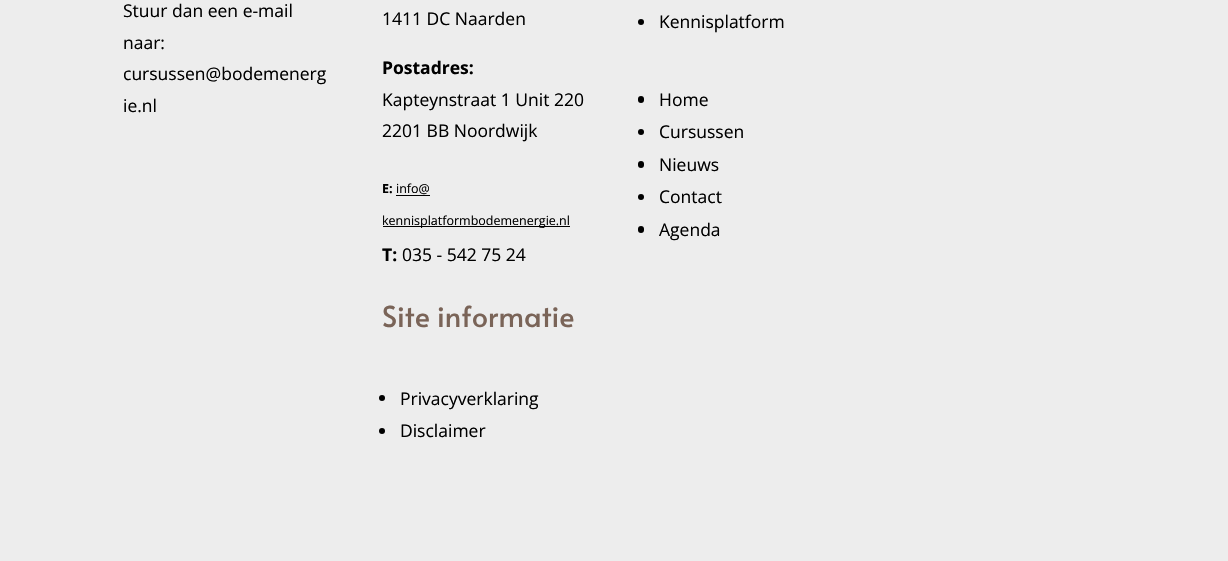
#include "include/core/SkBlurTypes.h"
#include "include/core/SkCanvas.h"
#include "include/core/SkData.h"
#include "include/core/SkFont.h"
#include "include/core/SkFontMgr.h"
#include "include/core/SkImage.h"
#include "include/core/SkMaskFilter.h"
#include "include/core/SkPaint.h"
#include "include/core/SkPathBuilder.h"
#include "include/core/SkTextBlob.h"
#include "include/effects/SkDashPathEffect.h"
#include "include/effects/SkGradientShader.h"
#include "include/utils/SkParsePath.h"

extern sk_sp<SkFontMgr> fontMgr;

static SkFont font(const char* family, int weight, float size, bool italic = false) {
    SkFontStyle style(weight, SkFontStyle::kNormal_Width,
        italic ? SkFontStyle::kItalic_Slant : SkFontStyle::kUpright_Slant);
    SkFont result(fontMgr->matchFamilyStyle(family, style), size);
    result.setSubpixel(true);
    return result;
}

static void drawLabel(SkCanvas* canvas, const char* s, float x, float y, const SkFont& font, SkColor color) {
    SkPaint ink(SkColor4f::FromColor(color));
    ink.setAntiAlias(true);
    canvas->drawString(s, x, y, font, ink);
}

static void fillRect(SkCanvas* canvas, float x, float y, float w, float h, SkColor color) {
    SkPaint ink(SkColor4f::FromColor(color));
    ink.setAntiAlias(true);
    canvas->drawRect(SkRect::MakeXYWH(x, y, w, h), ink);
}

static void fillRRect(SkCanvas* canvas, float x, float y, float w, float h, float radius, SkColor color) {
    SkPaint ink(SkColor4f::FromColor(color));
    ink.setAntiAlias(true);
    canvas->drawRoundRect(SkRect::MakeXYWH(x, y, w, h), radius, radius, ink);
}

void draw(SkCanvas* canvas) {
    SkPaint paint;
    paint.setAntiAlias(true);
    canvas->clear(0xFFEDEDED);
    SkFont font1 = font("Open Sans", 400, 17.5f);
    drawLabel(canvas, "Stuur dan een e-mail", 123, 17, font1, 0xFF000000);
    drawLabel(canvas, "naar:", 123, 49, font1, 0xFF000000);
    drawLabel(canvas, "cursussen@bodemenerg", 123, 80, font1, 0xFF000000);
    drawLabel(canvas, "ie.nl", 123, 112, font1, 0xFF000000);
    drawLabel(canvas, "1411 DC Naarden", 382, 25, font1, 0xFF000000);
    SkFont font2 = font("Open Sans", 700, 17.5f);
    drawLabel(canvas, "Postadres:", 382, 74, font2, 0xFF000000);
    drawLabel(canvas, "Kapteynstraat 1 Unit 220", 382, 106, font1, 0xFF000000);
    drawLabel(canvas, "2201 BB Noordwijk", 382, 137, font1, 0xFF000000);
    SkFont font3 = font("Open Sans", 700, 12.5f);
    drawLabel(canvas, "E:", 382, 193, font3, 0xFF000000);
    SkFont font4 = font("Open Sans", 400, 12.5f);
    drawLabel(canvas, "info@", 396, 193, font4, 0xFF000000);
    fillRect(canvas, 396, 195, 34, 1, 0xFF000000);
    fillRect(canvas, 383, 226, 187, 1, 0xFF000000);
    drawLabel(canvas, "kennisplatformbodemenergie.nl", 382, 225, font4, 0xFF000000);
    drawLabel(canvas, "T:", 382, 261, font2, 0xFF000000);
    drawLabel(canvas, "035 - 542 75 24", 402, 261, font1, 0xFF000000);
    SkFont font5 = font("Alata", 400, 28.75f);
    drawLabel(canvas, "Site informatie", 382, 327, font5, 0xFF7A6458);
    paint.setColor(0xFF000000);
    canvas->drawCircle(382, 398, 3, paint);
    drawLabel(canvas, "Privacyverklaring", 400, 405, font1, 0xFF000000);
    canvas->drawCircle(382, 431, 3, paint);
    drawLabel(canvas, "Disclaimer", 400, 437, font1, 0xFF000000);
    canvas->drawCircle(641, 22, 3, paint);
    drawLabel(canvas, "Kennisplatform", 659, 28, font1, 0xFF000000);
    fillRRect(canvas, 638, 96, 6, 7, 3, 0xFF000000);
    drawLabel(canvas, "Home", 659, 106, font1, 0xFF000000);
    canvas->drawCircle(641, 132, 3, paint);
    drawLabel(canvas, "Cursussen", 659, 138, font1, 0xFF000000);
    fillRRect(canvas, 638, 161, 6, 7, 3, 0xFF000000);
    drawLabel(canvas, "Nieuws", 659, 171, font1, 0xFF000000);
    canvas->drawCircle(641, 197, 3, paint);
    drawLabel(canvas, "Contact", 659, 203, font1, 0xFF000000);
    fillRRect(canvas, 638, 226, 6, 7, 3, 0xFF000000);
    drawLabel(canvas, "Agenda", 659, 236, font1, 0xFF000000);
}
